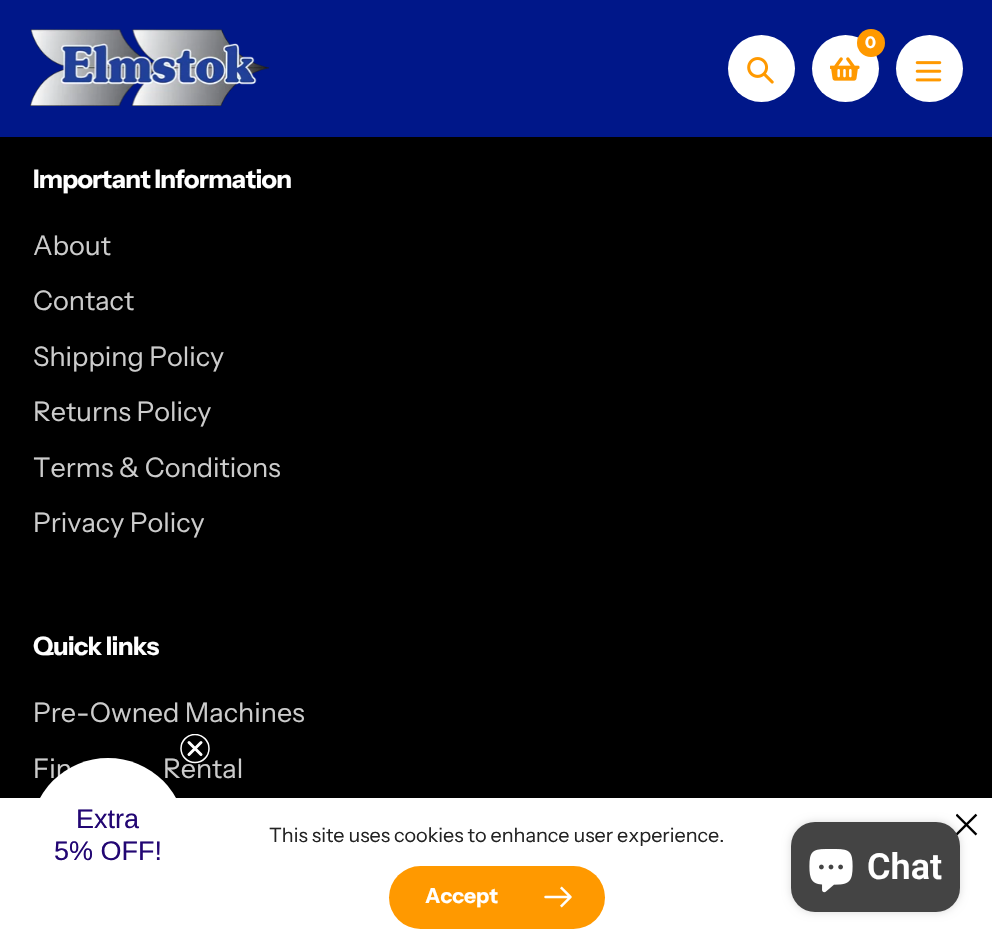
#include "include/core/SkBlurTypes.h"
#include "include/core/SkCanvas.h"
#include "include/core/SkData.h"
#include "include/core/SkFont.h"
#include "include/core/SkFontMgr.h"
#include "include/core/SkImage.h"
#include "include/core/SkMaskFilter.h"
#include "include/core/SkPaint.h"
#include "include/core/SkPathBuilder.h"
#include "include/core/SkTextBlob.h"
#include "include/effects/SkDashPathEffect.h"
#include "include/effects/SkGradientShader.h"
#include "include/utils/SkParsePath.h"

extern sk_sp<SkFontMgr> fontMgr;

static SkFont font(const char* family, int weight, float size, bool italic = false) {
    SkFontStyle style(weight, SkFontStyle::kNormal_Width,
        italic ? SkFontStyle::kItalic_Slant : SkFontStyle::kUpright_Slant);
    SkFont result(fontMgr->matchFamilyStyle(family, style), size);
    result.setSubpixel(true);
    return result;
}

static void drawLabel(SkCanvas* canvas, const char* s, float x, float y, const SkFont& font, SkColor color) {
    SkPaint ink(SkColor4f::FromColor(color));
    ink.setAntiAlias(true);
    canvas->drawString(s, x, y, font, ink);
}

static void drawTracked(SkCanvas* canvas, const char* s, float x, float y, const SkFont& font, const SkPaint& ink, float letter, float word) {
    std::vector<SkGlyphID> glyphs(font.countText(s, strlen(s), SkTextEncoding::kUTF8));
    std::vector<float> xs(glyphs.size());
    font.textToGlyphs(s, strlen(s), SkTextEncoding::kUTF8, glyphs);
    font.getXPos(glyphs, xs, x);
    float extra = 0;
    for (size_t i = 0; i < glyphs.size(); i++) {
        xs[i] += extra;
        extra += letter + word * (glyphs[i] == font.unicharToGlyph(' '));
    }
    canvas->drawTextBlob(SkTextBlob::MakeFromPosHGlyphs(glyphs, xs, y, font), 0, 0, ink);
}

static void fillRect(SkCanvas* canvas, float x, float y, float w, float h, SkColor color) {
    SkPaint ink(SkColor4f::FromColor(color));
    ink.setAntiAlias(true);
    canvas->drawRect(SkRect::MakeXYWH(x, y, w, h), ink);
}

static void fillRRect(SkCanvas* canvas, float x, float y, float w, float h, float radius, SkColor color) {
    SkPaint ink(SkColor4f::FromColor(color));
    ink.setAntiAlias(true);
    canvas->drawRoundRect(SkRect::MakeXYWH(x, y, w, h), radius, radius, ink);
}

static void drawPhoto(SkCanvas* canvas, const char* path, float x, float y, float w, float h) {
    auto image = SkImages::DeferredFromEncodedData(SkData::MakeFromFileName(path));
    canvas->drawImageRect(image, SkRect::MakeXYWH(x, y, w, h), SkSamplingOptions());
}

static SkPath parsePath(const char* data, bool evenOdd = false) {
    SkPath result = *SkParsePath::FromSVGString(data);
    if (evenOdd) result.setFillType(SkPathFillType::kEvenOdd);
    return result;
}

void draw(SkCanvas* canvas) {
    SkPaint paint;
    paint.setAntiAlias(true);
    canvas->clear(0xFF000000);
    fillRect(canvas, 0, 0, 992, 137, 0xFF001789);
    drawPhoto(canvas, "assets/img1.png", 30, 29, 240, 77);
    paint.setColor(0xFFFFFFFF);
    canvas->drawCircle(761.5f, 68.5f, 33.5f, paint);
    drawPhoto(canvas, "assets/img2.png", 747, 57, 27, 27);
    canvas->drawCircle(845.5f, 68.5f, 33.5f, paint);
    paint.setColor(0xFFFF9900);
    canvas->drawCircle(871, 43, 14, paint);
    SkFont font1 = font("Instrument Sans", 700, 16);
    drawLabel(canvas, "0", 865, 48, font1, 0xFFFFFFFF);
    drawPhoto(canvas, "assets/img3.png", 830, 57, 30, 24);
    paint.setColor(0xFFFFFFFF);
    canvas->drawCircle(929.5f, 68.5f, 33.5f, paint);
    drawPhoto(canvas, "assets/img4.png", 915, 61, 27, 21);
    SkFont font2 = font("Instrument Sans", 700, 25.5f);
    drawTracked(canvas, "Important Information", 33, 188, font2, paint, -0.75f, 0);
    SkFont font3 = font("Instrument Sans", 400, 27);
    drawLabel(canvas, "About", 33, 255, font3, 0xFFCCCCCC);
    drawLabel(canvas, "Contact", 33, 310, font3, 0xFFCCCCCC);
    drawLabel(canvas, "Shipping Policy", 33, 366, font3, 0xFFCCCCCC);
    drawLabel(canvas, "Returns Policy", 33, 421, font3, 0xFFCCCCCC);
    drawLabel(canvas, "Terms & Conditions", 33, 477, font3, 0xFFCCCCCC);
    drawLabel(canvas, "Privacy Policy", 33, 532, font3, 0xFFCCCCCC);
    drawTracked(canvas, "Quick links", 33, 655, font2, paint, -0.75f, 0);
    drawLabel(canvas, "Pre-Owned Machines", 33, 722, font3, 0xFFCCCCCC);
    drawLabel(canvas, "Fin", 33, 778, font3, 0xFFCCCCCC);
    drawLabel(canvas, "Rental", 163, 778, font3, 0xFFCCCCCC);
    fillRect(canvas, 0, 798, 992, 145, 0xFFFFFFFF);
    canvas->drawCircle(108, 836, 78, paint);
    canvas->save();
    canvas->clipRect(SkRect::MakeXYWH(180, 734, 30, 30));
    paint.setStroke(true);
    paint.setStrokeWidth(1.5f);
    canvas->drawCircle(195, 748.5f, 14, paint);
    canvas->restore();
    paint.setStrokeWidth(3);
    paint.setStrokeCap(SkPaint::kRound_Cap);
    paint.setStrokeJoin(SkPaint::kRound_Join);
    canvas->drawPath(parsePath("M189 742.5L201 754.5M189 754.5L201 742.5Z"), paint);
    SkFont font4 = font("Liberation Sans", 400, 27);
    drawLabel(canvas, "Extra", 76, 828, font4, 0xFF220673);
    drawLabel(canvas, "5% OFF!", 54, 860, font4, 0xFF220673);
    SkFont font5 = font("Instrument Sans", 400, 19.8f);
    drawLabel(canvas, "This site uses cookies to enhance user experience.", 269, 842, font5, 0xFF232323);
    drawPhoto(canvas, "assets/img5.png", 956, 813, 22, 23);
    fillRRect(canvas, 389, 866, 216, 63, 31.5f, 0xFFFF9900);
    SkFont font6 = font("Instrument Sans", 700, 21);
    drawLabel(canvas, "Accept", 425, 903, font6, 0xFFFFFFFF);
    drawPhoto(canvas, "assets/img6.png", 544, 886, 28, 22);
    paint.setStroke(false);
    paint.setColor(0x26000000);
    paint.setMaskFilter(SkMaskFilter::MakeBlur(kNormal_SkBlurStyle, 4));
    canvas->drawRoundRect(SkRect::MakeXYWH(791, 822, 169, 90), 24, 24, paint);
    paint.setMaskFilter(nullptr);
    fillRRect(canvas, 791, 822, 169, 90, 24, 0xFF444444);
    drawPhoto(canvas, "assets/img7.png", 809, 849, 44, 44);
    SkFont font7 = font("Roboto", 600, 36);
    drawLabel(canvas, "Chat", 867, 879, font7, 0xFFFFFFFF);
}
